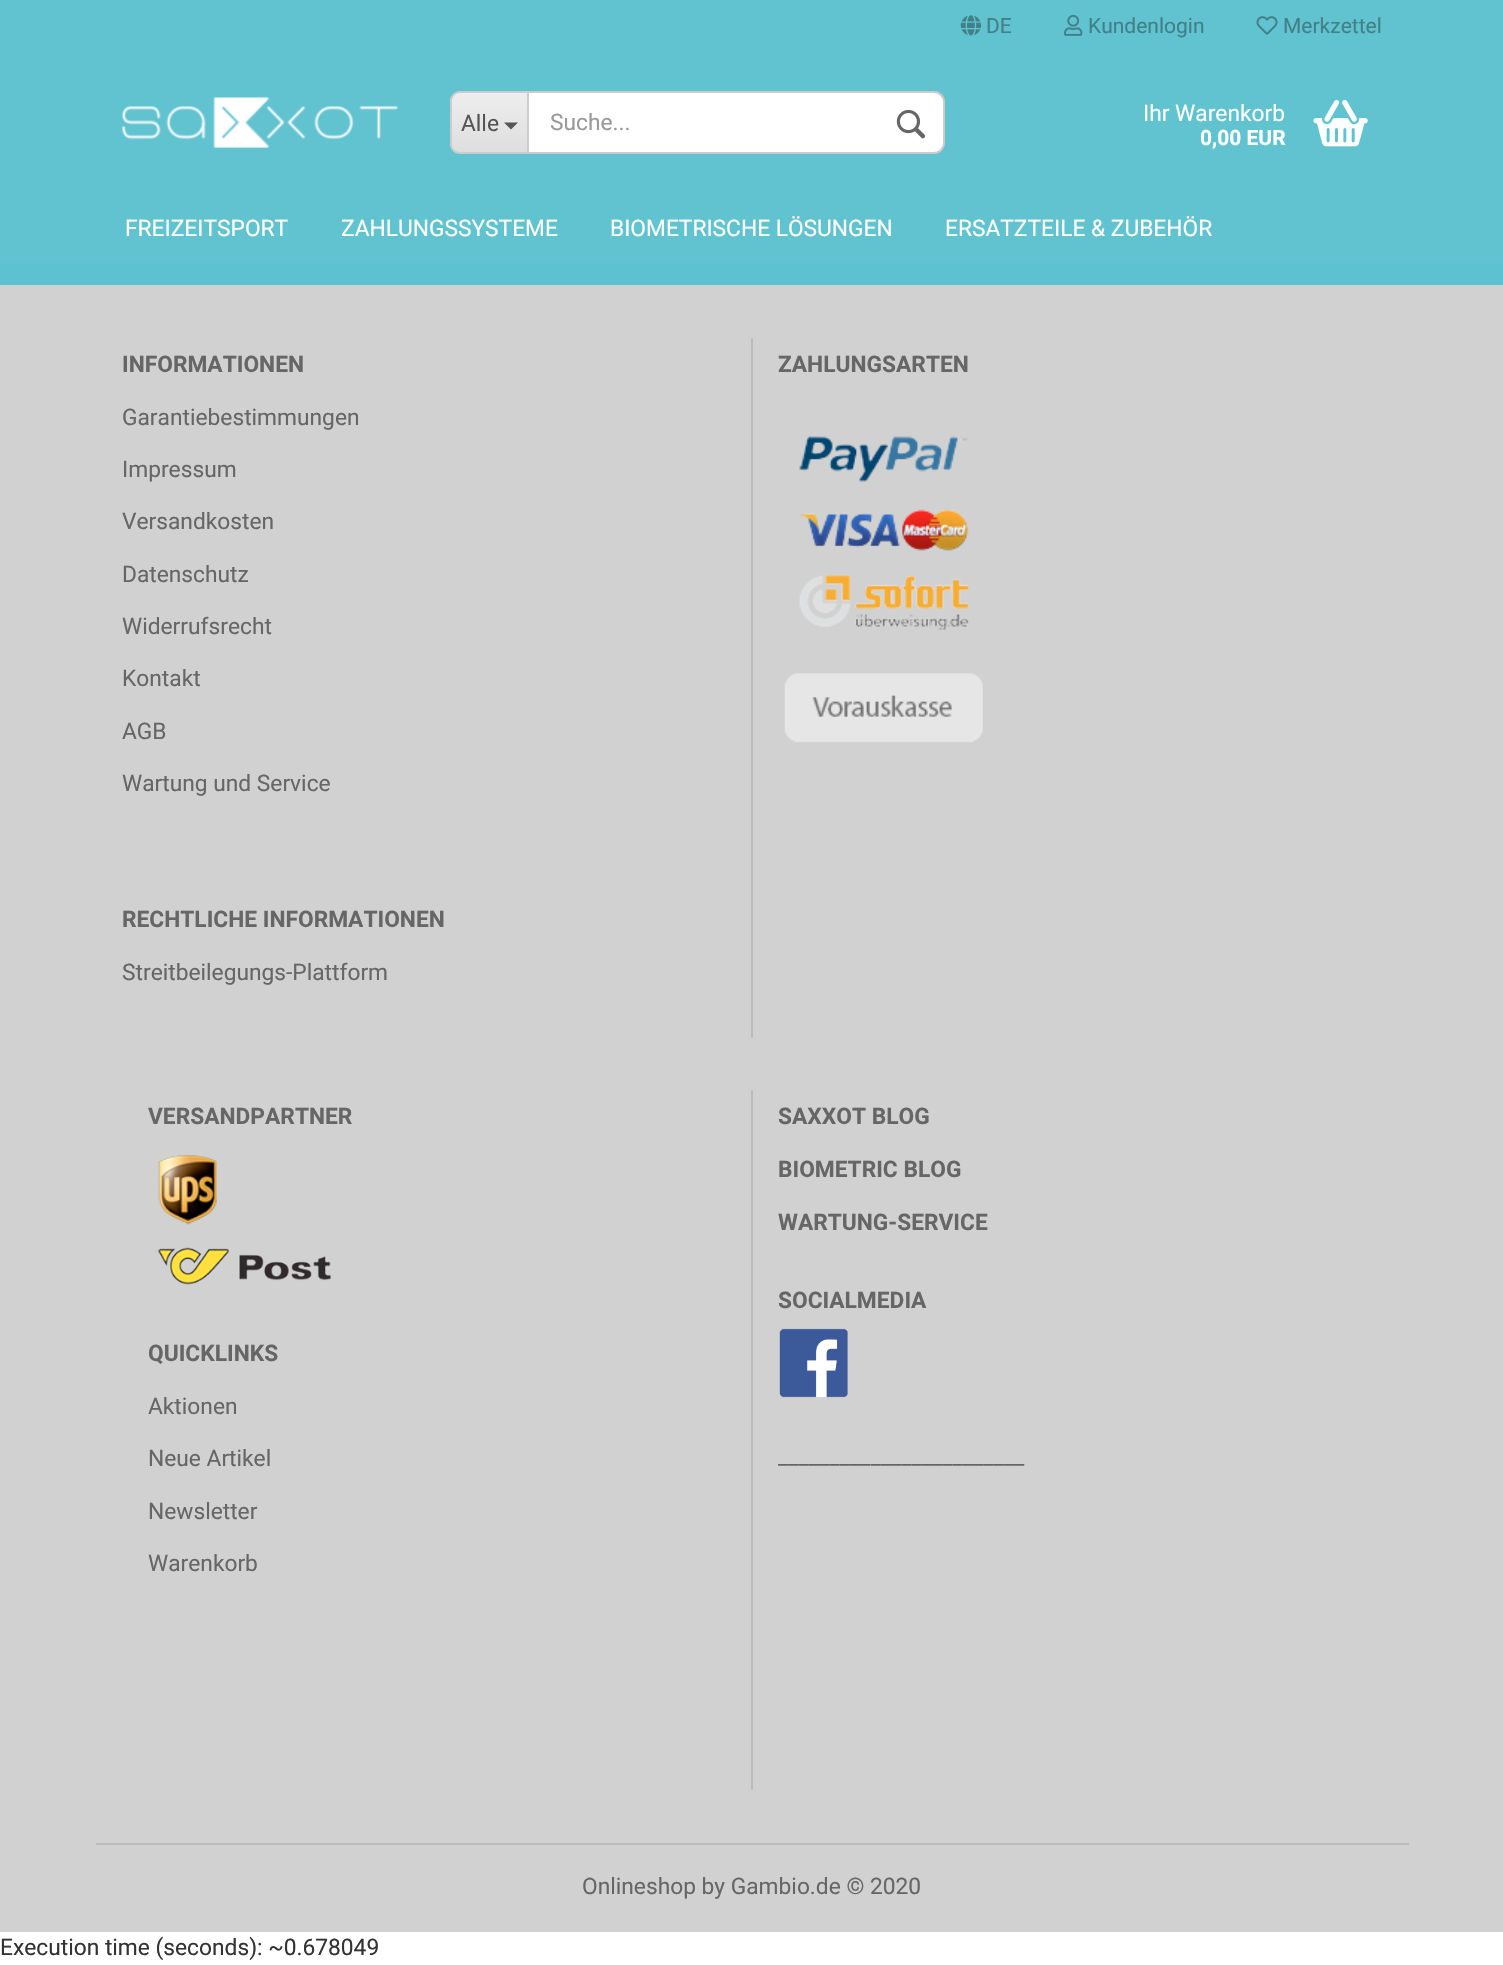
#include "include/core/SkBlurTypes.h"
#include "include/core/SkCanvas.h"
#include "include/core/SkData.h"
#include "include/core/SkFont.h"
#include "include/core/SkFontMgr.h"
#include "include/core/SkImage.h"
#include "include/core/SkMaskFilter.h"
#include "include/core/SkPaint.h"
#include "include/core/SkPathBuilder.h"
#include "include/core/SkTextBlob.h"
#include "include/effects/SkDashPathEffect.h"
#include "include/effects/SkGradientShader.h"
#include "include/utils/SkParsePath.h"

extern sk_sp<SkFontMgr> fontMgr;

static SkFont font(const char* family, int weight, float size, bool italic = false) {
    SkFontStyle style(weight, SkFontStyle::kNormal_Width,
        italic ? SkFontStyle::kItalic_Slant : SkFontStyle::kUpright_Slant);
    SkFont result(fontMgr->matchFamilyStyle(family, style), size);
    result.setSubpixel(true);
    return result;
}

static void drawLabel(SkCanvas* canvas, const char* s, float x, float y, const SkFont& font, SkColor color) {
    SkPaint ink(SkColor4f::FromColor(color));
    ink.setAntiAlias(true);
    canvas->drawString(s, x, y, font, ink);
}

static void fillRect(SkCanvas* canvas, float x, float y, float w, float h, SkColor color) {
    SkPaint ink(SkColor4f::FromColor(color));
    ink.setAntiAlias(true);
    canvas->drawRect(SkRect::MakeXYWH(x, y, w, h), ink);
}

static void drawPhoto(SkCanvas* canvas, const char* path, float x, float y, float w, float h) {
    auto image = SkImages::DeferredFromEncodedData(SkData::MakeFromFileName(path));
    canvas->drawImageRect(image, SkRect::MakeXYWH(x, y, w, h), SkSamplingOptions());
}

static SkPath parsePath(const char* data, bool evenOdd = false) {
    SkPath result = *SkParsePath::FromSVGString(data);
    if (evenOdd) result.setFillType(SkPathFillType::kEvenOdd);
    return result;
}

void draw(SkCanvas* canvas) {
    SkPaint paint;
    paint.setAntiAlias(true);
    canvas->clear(0xFFFFFFFF);
    fillRect(canvas, 0, 0, 1503, 263, 0xFF61C2D0);
    drawPhoto(canvas, "assets/img1.png", 960, 15, 22, 21);
    SkFont font1 = font("Roboto", 400, 21);
    drawLabel(canvas, "DE", 986, 33, font1, 0xFF408089);
    drawPhoto(canvas, "assets/img2.png", 1064, 14, 19, 22);
    drawLabel(canvas, "Kundenlogin", 1088, 33, font1, 0xFF408089);
    drawPhoto(canvas, "assets/img3.png", 1256, 16, 22, 19);
    drawLabel(canvas, "Merkzettel", 1283, 33, font1, 0xFF408089);
    drawPhoto(canvas, "assets/img4.png", 121, 97, 277, 51);
    canvas->save();
    canvas->clipPath(parsePath("M461 91H527V154H461C455 154 450 149 450 143V102C450 96 455 91 461 91Z"), true);
    {
        const SkColor colors[] = {0xFFEEEEEE, 0xFFDEDEDE};
        const float stops[] = {0, 1};
        const SkPoint ends[] = {{489, 93}, {489, 152}};
        paint.setShader(SkGradientShader::MakeLinear(ends, colors, stops, 2, SkTileMode::kClamp));
        paint.setAlpha(255);
    }
    canvas->drawRect(SkRect::MakeXYWH(450, 93, 77, 59), paint);
    canvas->restore();
    paint.setShader(nullptr);
    paint.setColor(0xFFCCCCCC);
    canvas->drawPath(parsePath("M460 91H527V154H460C454 154 450 149 450 144V102C450 96 454 91 460 91ZM460 93H527V152H460C455 152 452 148 452 144V102C452 97 455 93 460 93Z", true), paint);
    SkFont font2 = font("Roboto", 400, 22.75f);
    drawLabel(canvas, "Alle", 461, 131, font2, 0xFF555555);
    paint.setColor(0xFF555555);
    canvas->drawPath(parsePath("M504 122.5H518L511 129.5Z"), paint);
    paint.setColor(0xFFFFFFFF);
    canvas->drawPath(parsePath("M528 92H934C939.5 92 944 96.5 944 102V143C944 148.5 939.5 153 934 153H528Z"), paint);
    paint.setStroke(true);
    paint.setStrokeWidth(2);
    paint.setColor(0xFFCCCCCC);
    canvas->drawPath(parsePath("M528 92H934C939.5 92 944 96.5 944 102V143C944 148.5 939.5 153 934 153H528Z"), paint);
    drawLabel(canvas, "Suche...", 550, 130, font2, 0xFF999999);
    drawPhoto(canvas, "assets/img5.png", 896, 109, 30, 30);
    drawLabel(canvas, "Ihr Warenkorb", 1143, 121, font2, 0xFFFFFFFF);
    SkFont font3 = font("Roboto", 700, 21);
    drawLabel(canvas, "0,00 EUR", 1200, 145, font3, 0xFFFFFFFF);
    drawPhoto(canvas, "assets/img6.png", 1313, 99, 55, 48);
    drawLabel(canvas, "FREIZEITSPORT", 125, 236, font2, 0xFFFFFFFF);
    drawLabel(canvas, "ZAHLUNGSSYSTEME", 341, 236, font2, 0xFFFFFFFF);
    drawLabel(canvas, "BIOMETRISCHE LÖSUNGEN", 610, 236, font2, 0xFFFFFFFF);
    drawLabel(canvas, "ERSATZTEILE & ZUBEHÖR", 945, 236, font2, 0xFFFFFFFF);
    fillRect(canvas, 0, 285, 1503, 1647, 0xFFD1D1D1);
    fillRect(canvas, 0, 263, 1503, 22, 0xFF5CC2D1);
    fillRect(canvas, 96, 1843, 1313, 2, 0xFFBBBBBB);
    fillRect(canvas, 751, 338, 2, 700, 0xFFBBBBBB);
    SkFont font4 = font("Roboto", 700, 22.75f);
    drawLabel(canvas, "INFORMATIONEN", 122, 372, font4, 0xFF666666);
    drawLabel(canvas, "Garantiebestimmungen", 122, 425, font2, 0xFF666666);
    drawLabel(canvas, "Impressum", 122, 477, font2, 0xFF666666);
    drawLabel(canvas, "Versandkosten", 122, 529, font2, 0xFF666666);
    drawLabel(canvas, "Datenschutz", 122, 582, font2, 0xFF666666);
    drawLabel(canvas, "Widerrufsrecht", 122, 634, font2, 0xFF666666);
    drawLabel(canvas, "Kontakt", 122, 686, font2, 0xFF666666);
    drawLabel(canvas, "AGB", 122, 739, font2, 0xFF666666);
    drawLabel(canvas, "Wartung und Service", 122, 791, font2, 0xFF666666);
    drawLabel(canvas, "RECHTLICHE INFORMATIONEN", 122, 927, font4, 0xFF666666);
    drawLabel(canvas, "Streitbeilegungs-Plattform", 122, 980, font2, 0xFF666666);
    drawLabel(canvas, "ZAHLUNGSARTEN", 778, 372, font4, 0xFF666666);
    drawPhoto(canvas, "assets/img7.png", 799, 436, 169, 46);
    drawPhoto(canvas, "assets/img8.png", 799, 509, 170, 42);
    drawPhoto(canvas, "assets/img9.png", 799, 575, 170, 55);
    drawPhoto(canvas, "assets/img10.png", 784, 673, 199, 70);
    fillRect(canvas, 751, 1090, 2, 700, 0xFFBBBBBB);
    drawLabel(canvas, "VERSANDPARTNER", 148, 1124, font4, 0xFF666666);
    drawPhoto(canvas, "assets/img11.png", 158, 1155, 59, 70);
    drawPhoto(canvas, "assets/img12.png", 157, 1247, 174, 38);
    drawLabel(canvas, "QUICKLINKS", 148, 1361, font4, 0xFF666666);
    drawLabel(canvas, "Aktionen", 148, 1414, font2, 0xFF666666);
    drawLabel(canvas, "Neue Artikel", 148, 1466, font2, 0xFF666666);
    drawLabel(canvas, "Newsletter", 148, 1519, font2, 0xFF666666);
    drawLabel(canvas, "Warenkorb", 148, 1571, font2, 0xFF666666);
    drawLabel(canvas, "SAXXOT BLOG", 778, 1124, font4, 0xFF666666);
    drawLabel(canvas, "BIOMETRIC BLOG", 778, 1177, font4, 0xFF666666);
    drawLabel(canvas, "WARTUNG-SERVICE", 778, 1230, font4, 0xFF666666);
    drawLabel(canvas, "SOCIALMEDIA", 778, 1308, font4, 0xFF666666);
    drawPhoto(canvas, "assets/img13.png", 779, 1328, 69, 70);
    drawLabel(canvas, "________________________", 778, 1464, font2, 0xFF666666);
    drawLabel(canvas, "Onlineshop by Gambio.de © 2020", 582, 1894, font2, 0xFF666666);
    drawLabel(canvas, "Execution time (seconds): ~0.678049", 0, 1955, font2, 0xFF333333);
}
